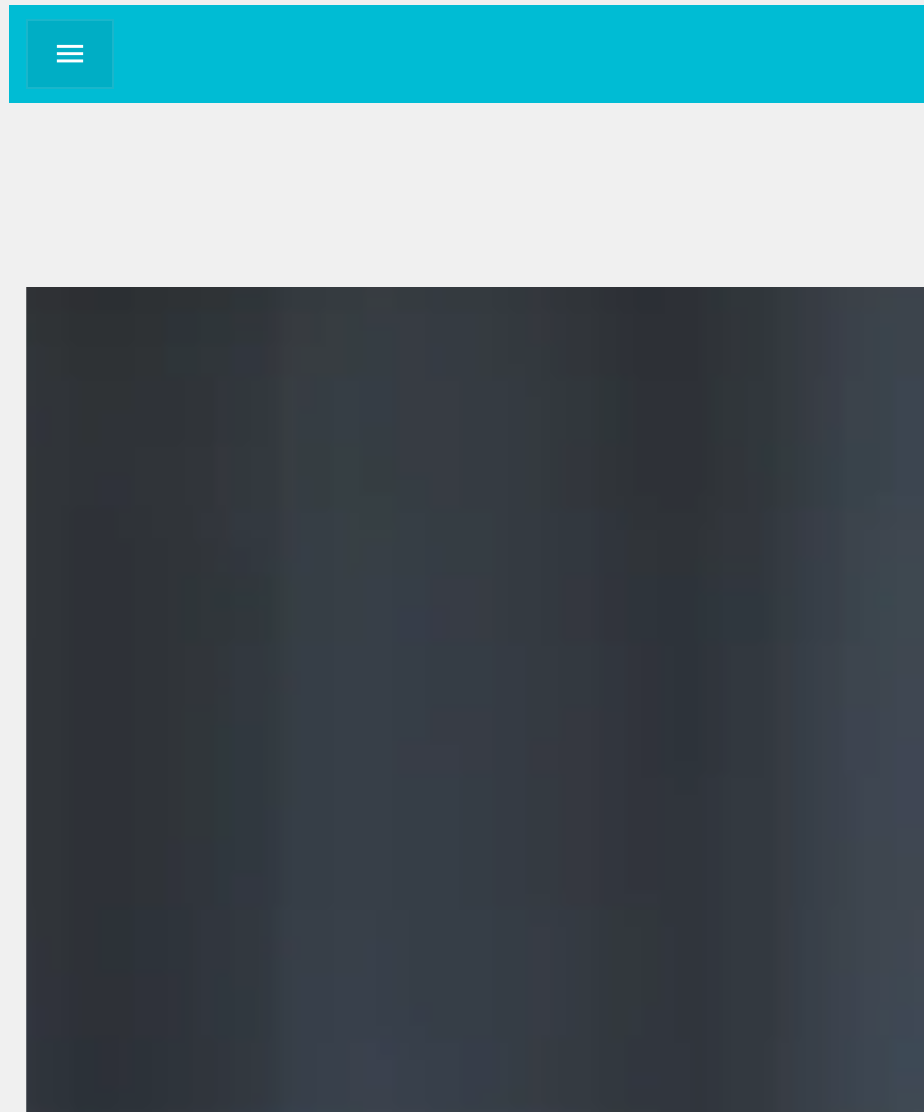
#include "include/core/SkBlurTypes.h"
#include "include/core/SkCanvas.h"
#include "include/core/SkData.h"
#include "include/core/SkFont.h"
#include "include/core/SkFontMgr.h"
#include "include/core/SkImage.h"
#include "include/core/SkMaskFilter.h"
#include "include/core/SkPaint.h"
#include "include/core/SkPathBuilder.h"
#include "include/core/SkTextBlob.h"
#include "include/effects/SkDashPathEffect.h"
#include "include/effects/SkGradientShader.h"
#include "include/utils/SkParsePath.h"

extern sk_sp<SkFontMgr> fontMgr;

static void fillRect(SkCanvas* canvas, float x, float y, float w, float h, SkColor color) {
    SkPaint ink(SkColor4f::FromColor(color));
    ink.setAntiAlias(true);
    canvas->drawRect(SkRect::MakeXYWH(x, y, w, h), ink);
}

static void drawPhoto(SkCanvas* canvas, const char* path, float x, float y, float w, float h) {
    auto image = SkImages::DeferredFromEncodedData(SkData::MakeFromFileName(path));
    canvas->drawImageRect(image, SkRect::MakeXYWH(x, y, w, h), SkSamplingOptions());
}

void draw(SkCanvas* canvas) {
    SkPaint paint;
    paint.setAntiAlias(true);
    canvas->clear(0xFFF0F0F0);
    fillRect(canvas, 9, 5, 915, 98, 0xFF00BCD4);
    paint.setColor(0xFF00AEC5);
    canvas->drawRect(SkRect::MakeXYWH(27, 20, 86, 68), paint);
    paint.setStroke(true);
    paint.setStrokeWidth(2);
    paint.setColor(0xFF1AB6CB);
    canvas->drawRect(SkRect::MakeXYWH(27, 20, 86, 68), paint);
    drawPhoto(canvas, "assets/img1.png", 56, 44, 28, 19);
    drawPhoto(canvas, "assets/img2.png", 26, 287, 898, 825);
}
